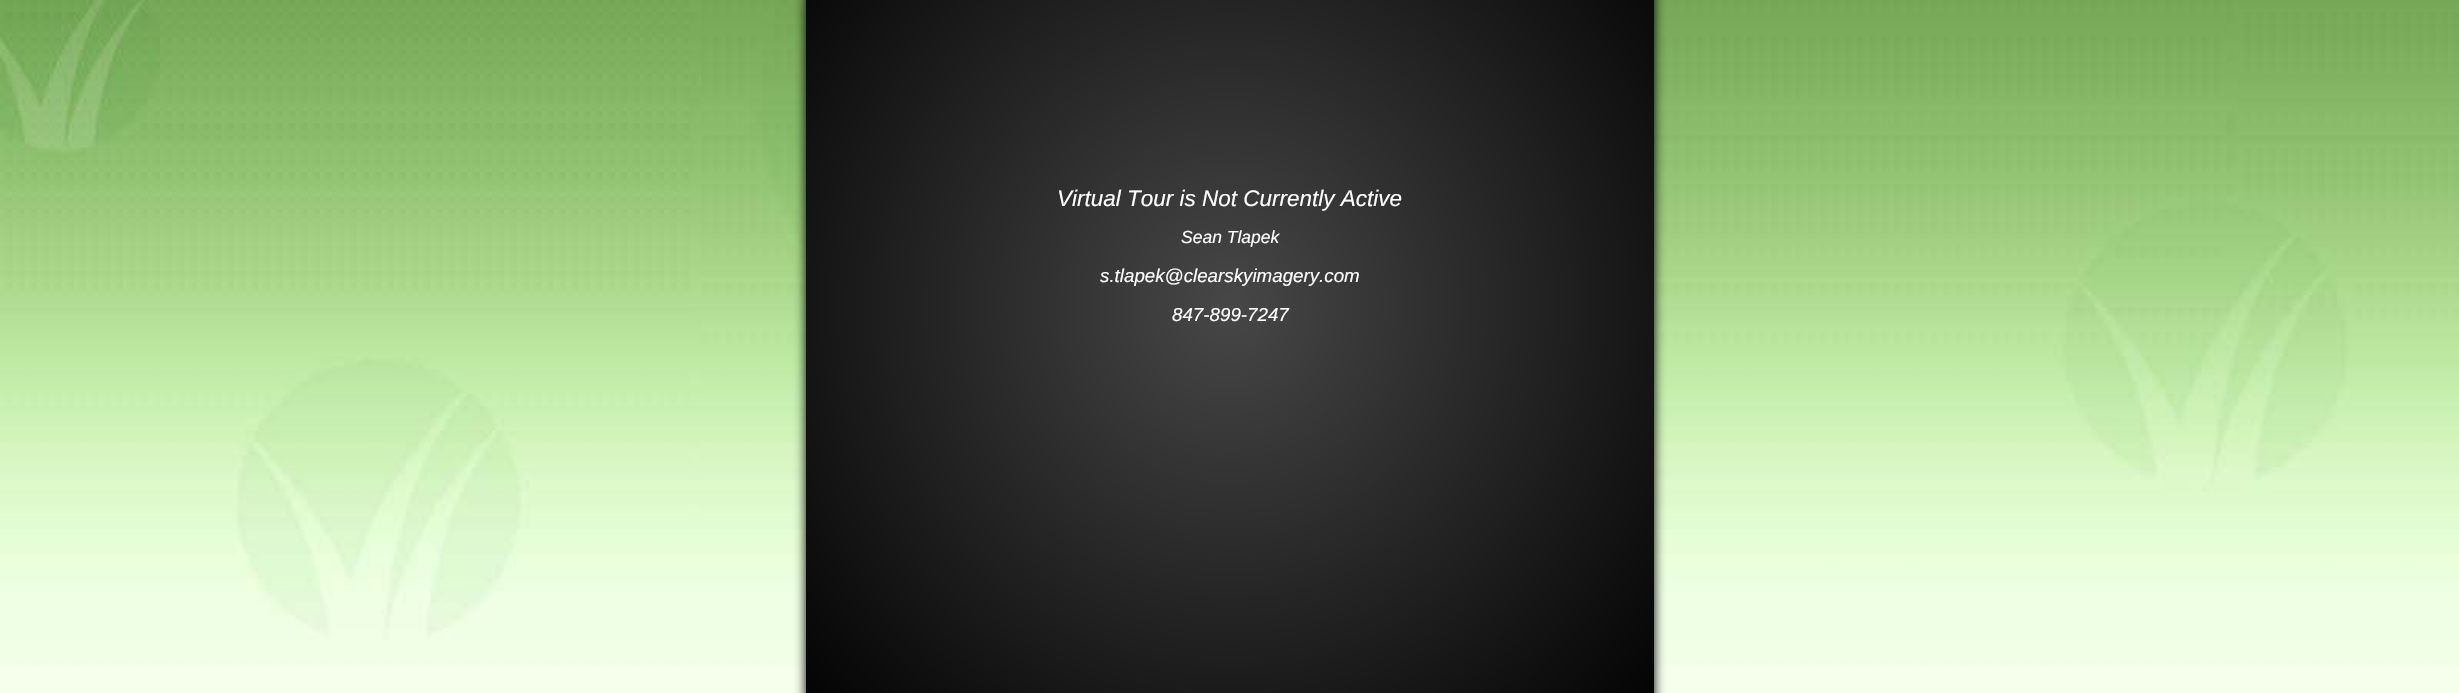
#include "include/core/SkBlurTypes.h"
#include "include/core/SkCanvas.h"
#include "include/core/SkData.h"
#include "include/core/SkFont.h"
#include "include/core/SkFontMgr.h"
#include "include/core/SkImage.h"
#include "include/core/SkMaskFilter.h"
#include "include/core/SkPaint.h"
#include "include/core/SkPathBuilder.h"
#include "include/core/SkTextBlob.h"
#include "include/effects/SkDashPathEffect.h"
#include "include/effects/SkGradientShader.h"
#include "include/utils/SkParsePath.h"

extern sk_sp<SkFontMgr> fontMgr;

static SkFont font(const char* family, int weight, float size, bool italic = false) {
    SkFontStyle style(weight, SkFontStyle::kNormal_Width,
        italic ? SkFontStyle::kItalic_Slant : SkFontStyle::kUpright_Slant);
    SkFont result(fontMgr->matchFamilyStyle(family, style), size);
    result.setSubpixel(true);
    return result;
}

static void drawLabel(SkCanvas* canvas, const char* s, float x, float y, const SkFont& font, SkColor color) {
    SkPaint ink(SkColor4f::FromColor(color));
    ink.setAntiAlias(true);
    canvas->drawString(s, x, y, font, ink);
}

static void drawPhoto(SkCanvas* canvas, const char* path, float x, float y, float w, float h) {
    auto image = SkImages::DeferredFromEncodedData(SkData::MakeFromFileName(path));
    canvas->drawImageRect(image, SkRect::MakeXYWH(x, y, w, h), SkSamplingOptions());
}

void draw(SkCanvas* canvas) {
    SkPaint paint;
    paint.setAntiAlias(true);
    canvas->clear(0xFFFFFFFF);
    drawPhoto(canvas, "assets/img1.png", 0, 0, 2459, 693);
    paint.setColor(0xFF000000);
    paint.setMaskFilter(SkMaskFilter::MakeBlur(kNormal_SkBlurStyle, 6));
    canvas->drawRoundRect(SkRect::MakeXYWH(806, -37, 848, 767), 19, 19, paint);
    paint.setMaskFilter(nullptr);
    {
        const SkColor colors[] = {0xFF474747, 0xFF000000};
        const float stops[] = {0, 1};
        SkMatrix m = SkMatrix::Translate(1230, 306).preScale(599, 619);
        paint.setShader(SkGradientShader::MakeRadial({0, 0}, 1, colors, stops, 2, SkTileMode::kClamp, 0, &m));
        paint.setAlpha(255);
    }
    canvas->drawRect(SkRect::MakeXYWH(806, 0, 848, 693), paint);
    SkFont font1 = font("Liberation Sans", 400, 22.5f, true);
    drawLabel(canvas, "Virtual Tour is Not Currently Active", 1057, 206, font1, 0xFFFFFFFF);
    SkFont font2 = font("Liberation Sans", 400, 17.5f, true);
    drawLabel(canvas, "Sean Tlapek", 1181, 243, font2, 0xFFFFFFFF);
    SkFont font3 = font("Liberation Sans", 400, 18.75f, true);
    drawLabel(canvas, "s.tlapek@clearskyimagery.com", 1100, 282, font3, 0xFFFFFFFF);
    drawLabel(canvas, "847-899-7247", 1172, 321, font3, 0xFFFFFFFF);
}
